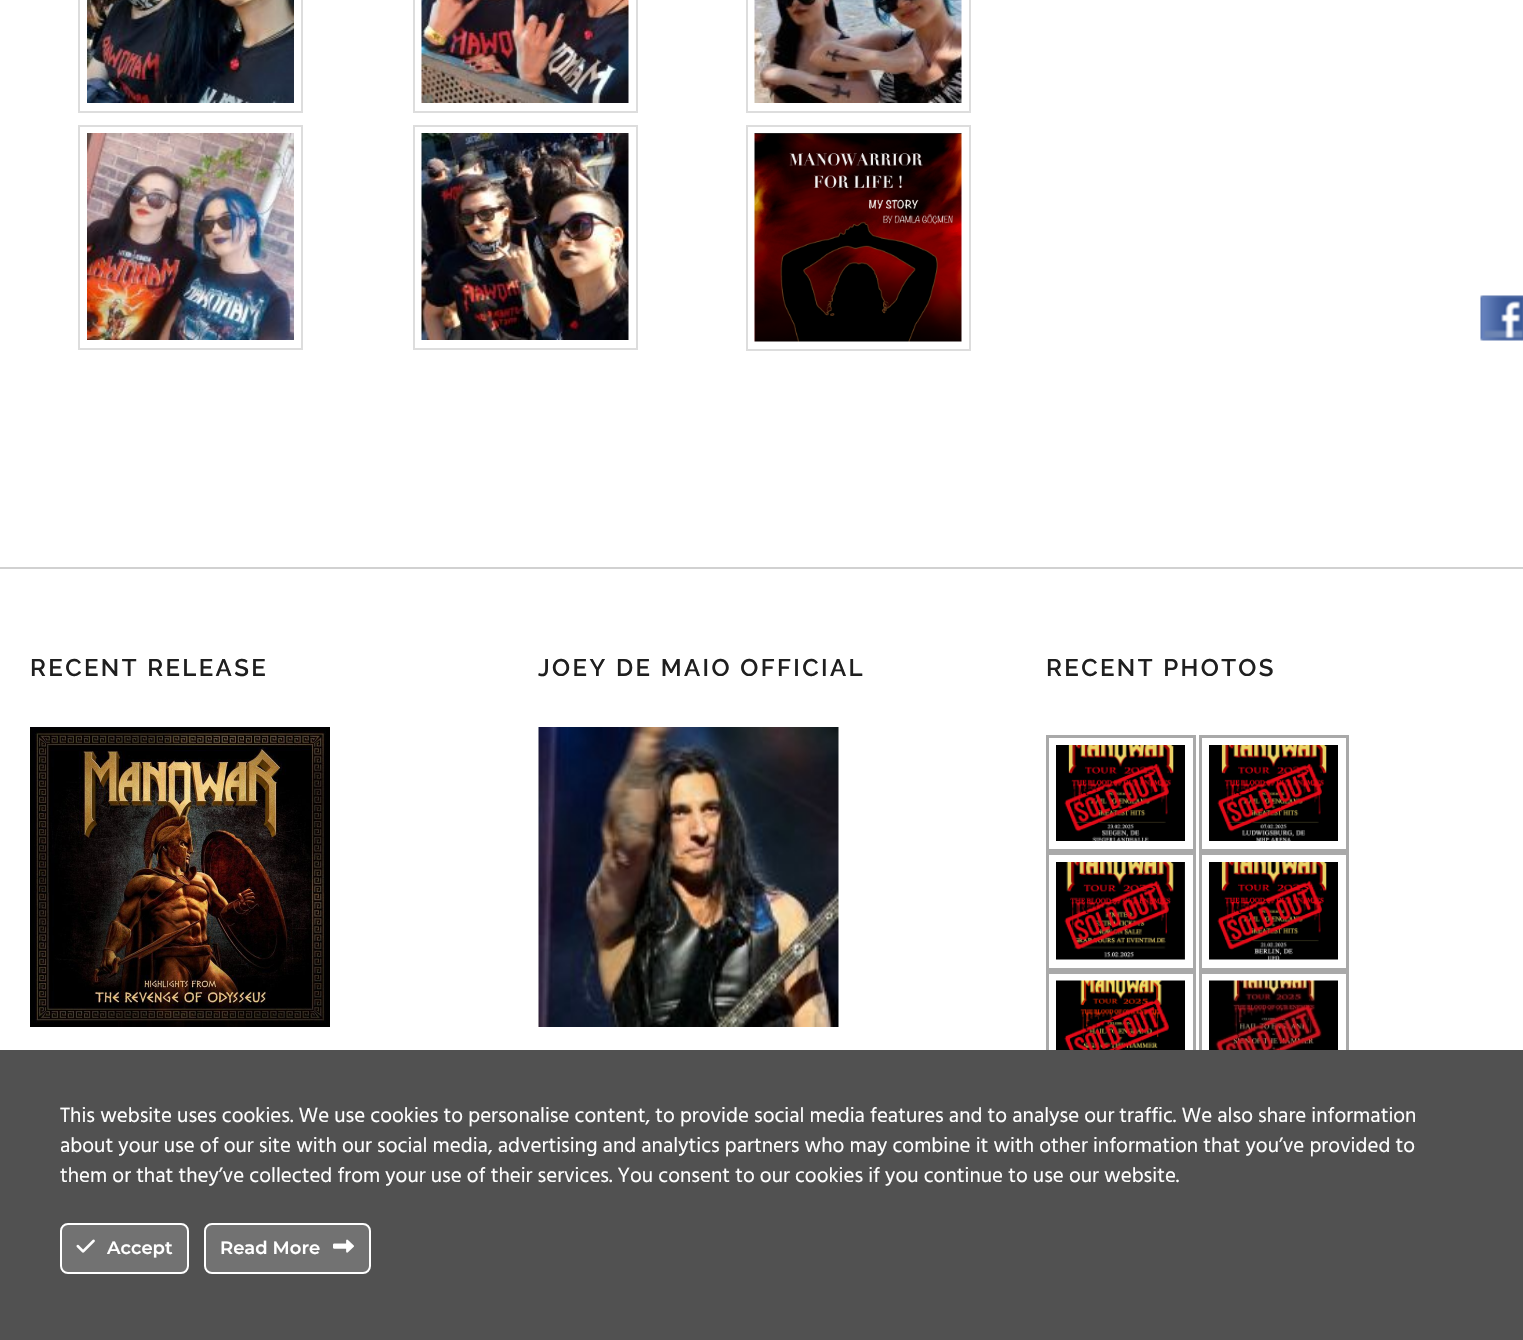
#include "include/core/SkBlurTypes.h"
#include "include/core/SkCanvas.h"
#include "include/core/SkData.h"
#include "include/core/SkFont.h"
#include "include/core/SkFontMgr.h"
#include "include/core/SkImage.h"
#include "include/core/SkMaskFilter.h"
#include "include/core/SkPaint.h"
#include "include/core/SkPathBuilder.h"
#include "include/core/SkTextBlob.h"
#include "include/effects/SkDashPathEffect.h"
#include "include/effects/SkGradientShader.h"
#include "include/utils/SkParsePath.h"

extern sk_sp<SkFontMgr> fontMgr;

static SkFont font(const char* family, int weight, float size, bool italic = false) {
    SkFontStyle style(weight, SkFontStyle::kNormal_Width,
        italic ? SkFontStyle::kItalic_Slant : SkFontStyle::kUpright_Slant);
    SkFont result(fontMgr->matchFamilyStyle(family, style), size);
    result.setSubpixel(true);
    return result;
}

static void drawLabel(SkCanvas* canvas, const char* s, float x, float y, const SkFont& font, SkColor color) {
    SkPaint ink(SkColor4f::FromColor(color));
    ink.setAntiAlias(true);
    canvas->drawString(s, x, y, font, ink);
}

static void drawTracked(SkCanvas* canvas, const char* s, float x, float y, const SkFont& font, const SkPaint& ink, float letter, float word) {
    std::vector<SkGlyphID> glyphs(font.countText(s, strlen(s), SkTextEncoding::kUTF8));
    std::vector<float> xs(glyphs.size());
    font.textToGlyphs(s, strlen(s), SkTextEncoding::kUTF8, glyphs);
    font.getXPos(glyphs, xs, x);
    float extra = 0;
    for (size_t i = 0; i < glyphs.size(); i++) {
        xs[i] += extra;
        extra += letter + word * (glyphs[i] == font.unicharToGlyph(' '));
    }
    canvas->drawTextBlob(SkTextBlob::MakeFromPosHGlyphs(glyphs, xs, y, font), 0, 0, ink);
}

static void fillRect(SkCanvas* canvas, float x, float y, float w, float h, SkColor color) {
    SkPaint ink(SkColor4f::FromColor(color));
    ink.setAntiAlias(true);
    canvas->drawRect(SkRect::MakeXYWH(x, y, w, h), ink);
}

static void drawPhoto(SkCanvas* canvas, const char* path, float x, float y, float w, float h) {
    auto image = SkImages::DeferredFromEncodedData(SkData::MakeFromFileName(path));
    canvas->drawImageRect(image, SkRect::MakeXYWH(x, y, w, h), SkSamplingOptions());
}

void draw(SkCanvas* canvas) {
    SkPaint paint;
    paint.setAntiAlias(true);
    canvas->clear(0xFFFFFFFF);
    drawPhoto(canvas, "assets/img1.png", 1480, 295, 43, 46);
    paint.setStroke(true);
    paint.setStrokeWidth(2);
    paint.setColor(0xFFDDDDDD);
    canvas->drawRect(SkRect::MakeXYWH(79, -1, 223, 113), paint);
    drawPhoto(canvas, "assets/img2.png", 87, 0, 207, 103);
    canvas->drawRect(SkRect::MakeXYWH(414, -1, 223, 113), paint);
    drawPhoto(canvas, "assets/img3.png", 421, 0, 208, 103);
    canvas->drawRect(SkRect::MakeXYWH(747, -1, 223, 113), paint);
    drawPhoto(canvas, "assets/img4.png", 754, 0, 208, 103);
    canvas->drawRect(SkRect::MakeXYWH(79, 126, 223, 223), paint);
    drawPhoto(canvas, "assets/img5.png", 87, 133, 207, 207);
    canvas->drawRect(SkRect::MakeXYWH(414, 126, 223, 223), paint);
    drawPhoto(canvas, "assets/img6.png", 421, 133, 208, 207);
    canvas->drawRect(SkRect::MakeXYWH(747, 126, 223, 224), paint);
    drawPhoto(canvas, "assets/img7.png", 754, 133, 208, 209);
    fillRect(canvas, 0, 567, 1523, 2, 0xFFD1D1D1);
    SkFont font1 = font("Raleway", 600, 24);
    paint.setStroke(false);
    paint.setColor(0xFF1F1F1F);
    drawTracked(canvas, "RECENT RELEASE", 30, 676, font1, paint, 2.4f, 0);
    drawPhoto(canvas, "assets/img8.png", 30, 727, 300, 300);
    drawTracked(canvas, "JOEY DE MAIO OFFICIAL", 538, 676, font1, paint, 2.4f, 0);
    drawPhoto(canvas, "assets/img9.png", 538, 727, 301, 300);
    drawTracked(canvas, "RECENT PHOTOS", 1046, 676, font1, paint, 2.4f, 0);
    paint.setStroke(true);
    paint.setStrokeWidth(3);
    paint.setColor(0xFFA9A9A9);
    canvas->drawRect(SkRect::MakeXYWH(1047.5f, 736.5f, 147, 114), paint);
    drawPhoto(canvas, "assets/img10.png", 1056, 745, 129, 96);
    canvas->drawRect(SkRect::MakeXYWH(1200.5f, 736.5f, 147, 114), paint);
    drawPhoto(canvas, "assets/img11.png", 1209, 745, 129, 96);
    canvas->drawRect(SkRect::MakeXYWH(1047.5f, 853.5f, 147, 116), paint);
    drawPhoto(canvas, "assets/img12.png", 1056, 862, 129, 98);
    canvas->drawRect(SkRect::MakeXYWH(1200.5f, 853.5f, 147, 116), paint);
    drawPhoto(canvas, "assets/img13.png", 1209, 862, 129, 98);
    canvas->drawRect(SkRect::MakeXYWH(1047.5f, 972.5f, 147, 114), paint);
    drawPhoto(canvas, "assets/img14.png", 1056, 980, 129, 70);
    canvas->drawRect(SkRect::MakeXYWH(1200.5f, 972.5f, 147, 114), paint);
    drawPhoto(canvas, "assets/img15.png", 1209, 980, 129, 70);
    fillRect(canvas, 0, 1050, 1523, 290, 0xFF515151);
    SkFont font2 = font("Hind", 400, 21);
    drawLabel(canvas, "This website uses cookies. We use cookies to personalise content, to provide social media features and to analyse our traffic. We also share information", 60, 1122, font2, 0xFFFFFFFF);
    drawLabel(canvas, "about your use of our site with our social media, advertising and analytics partners who may combine it with other information that you’ve provided to", 60, 1152, font2, 0xFFFFFFFF);
    drawLabel(canvas, "them or that they’ve collected from your use of their services. You consent to our cookies if you continue to use our website.", 60, 1182, font2, 0xFFFFFFFF);
    paint.setStroke(false);
    paint.setColor(0xFF727272);
    canvas->drawRoundRect(SkRect::MakeXYWH(61, 1224, 127, 49), 7, 7, paint);
    paint.setStroke(true);
    paint.setStrokeWidth(2);
    paint.setColor(0xFFFFFFFF);
    canvas->drawRoundRect(SkRect::MakeXYWH(61, 1224, 127, 49), 7, 7, paint);
    drawPhoto(canvas, "assets/img16.png", 76, 1239, 19, 14);
    SkFont font3 = font("Montserrat", 600, 18);
    drawLabel(canvas, "Accept", 107, 1254, font3, 0xFFFFFFFF);
    paint.setStroke(false);
    paint.setColor(0xFF727272);
    canvas->drawRoundRect(SkRect::MakeXYWH(205, 1224, 165, 49), 7, 7, paint);
    paint.setStroke(true);
    paint.setColor(0xFFFFFFFF);
    canvas->drawRoundRect(SkRect::MakeXYWH(205, 1224, 165, 49), 7, 7, paint);
    drawLabel(canvas, "Read More", 220, 1254, font3, 0xFFFFFFFF);
    drawPhoto(canvas, "assets/img17.png", 333, 1239, 21, 14);
}
